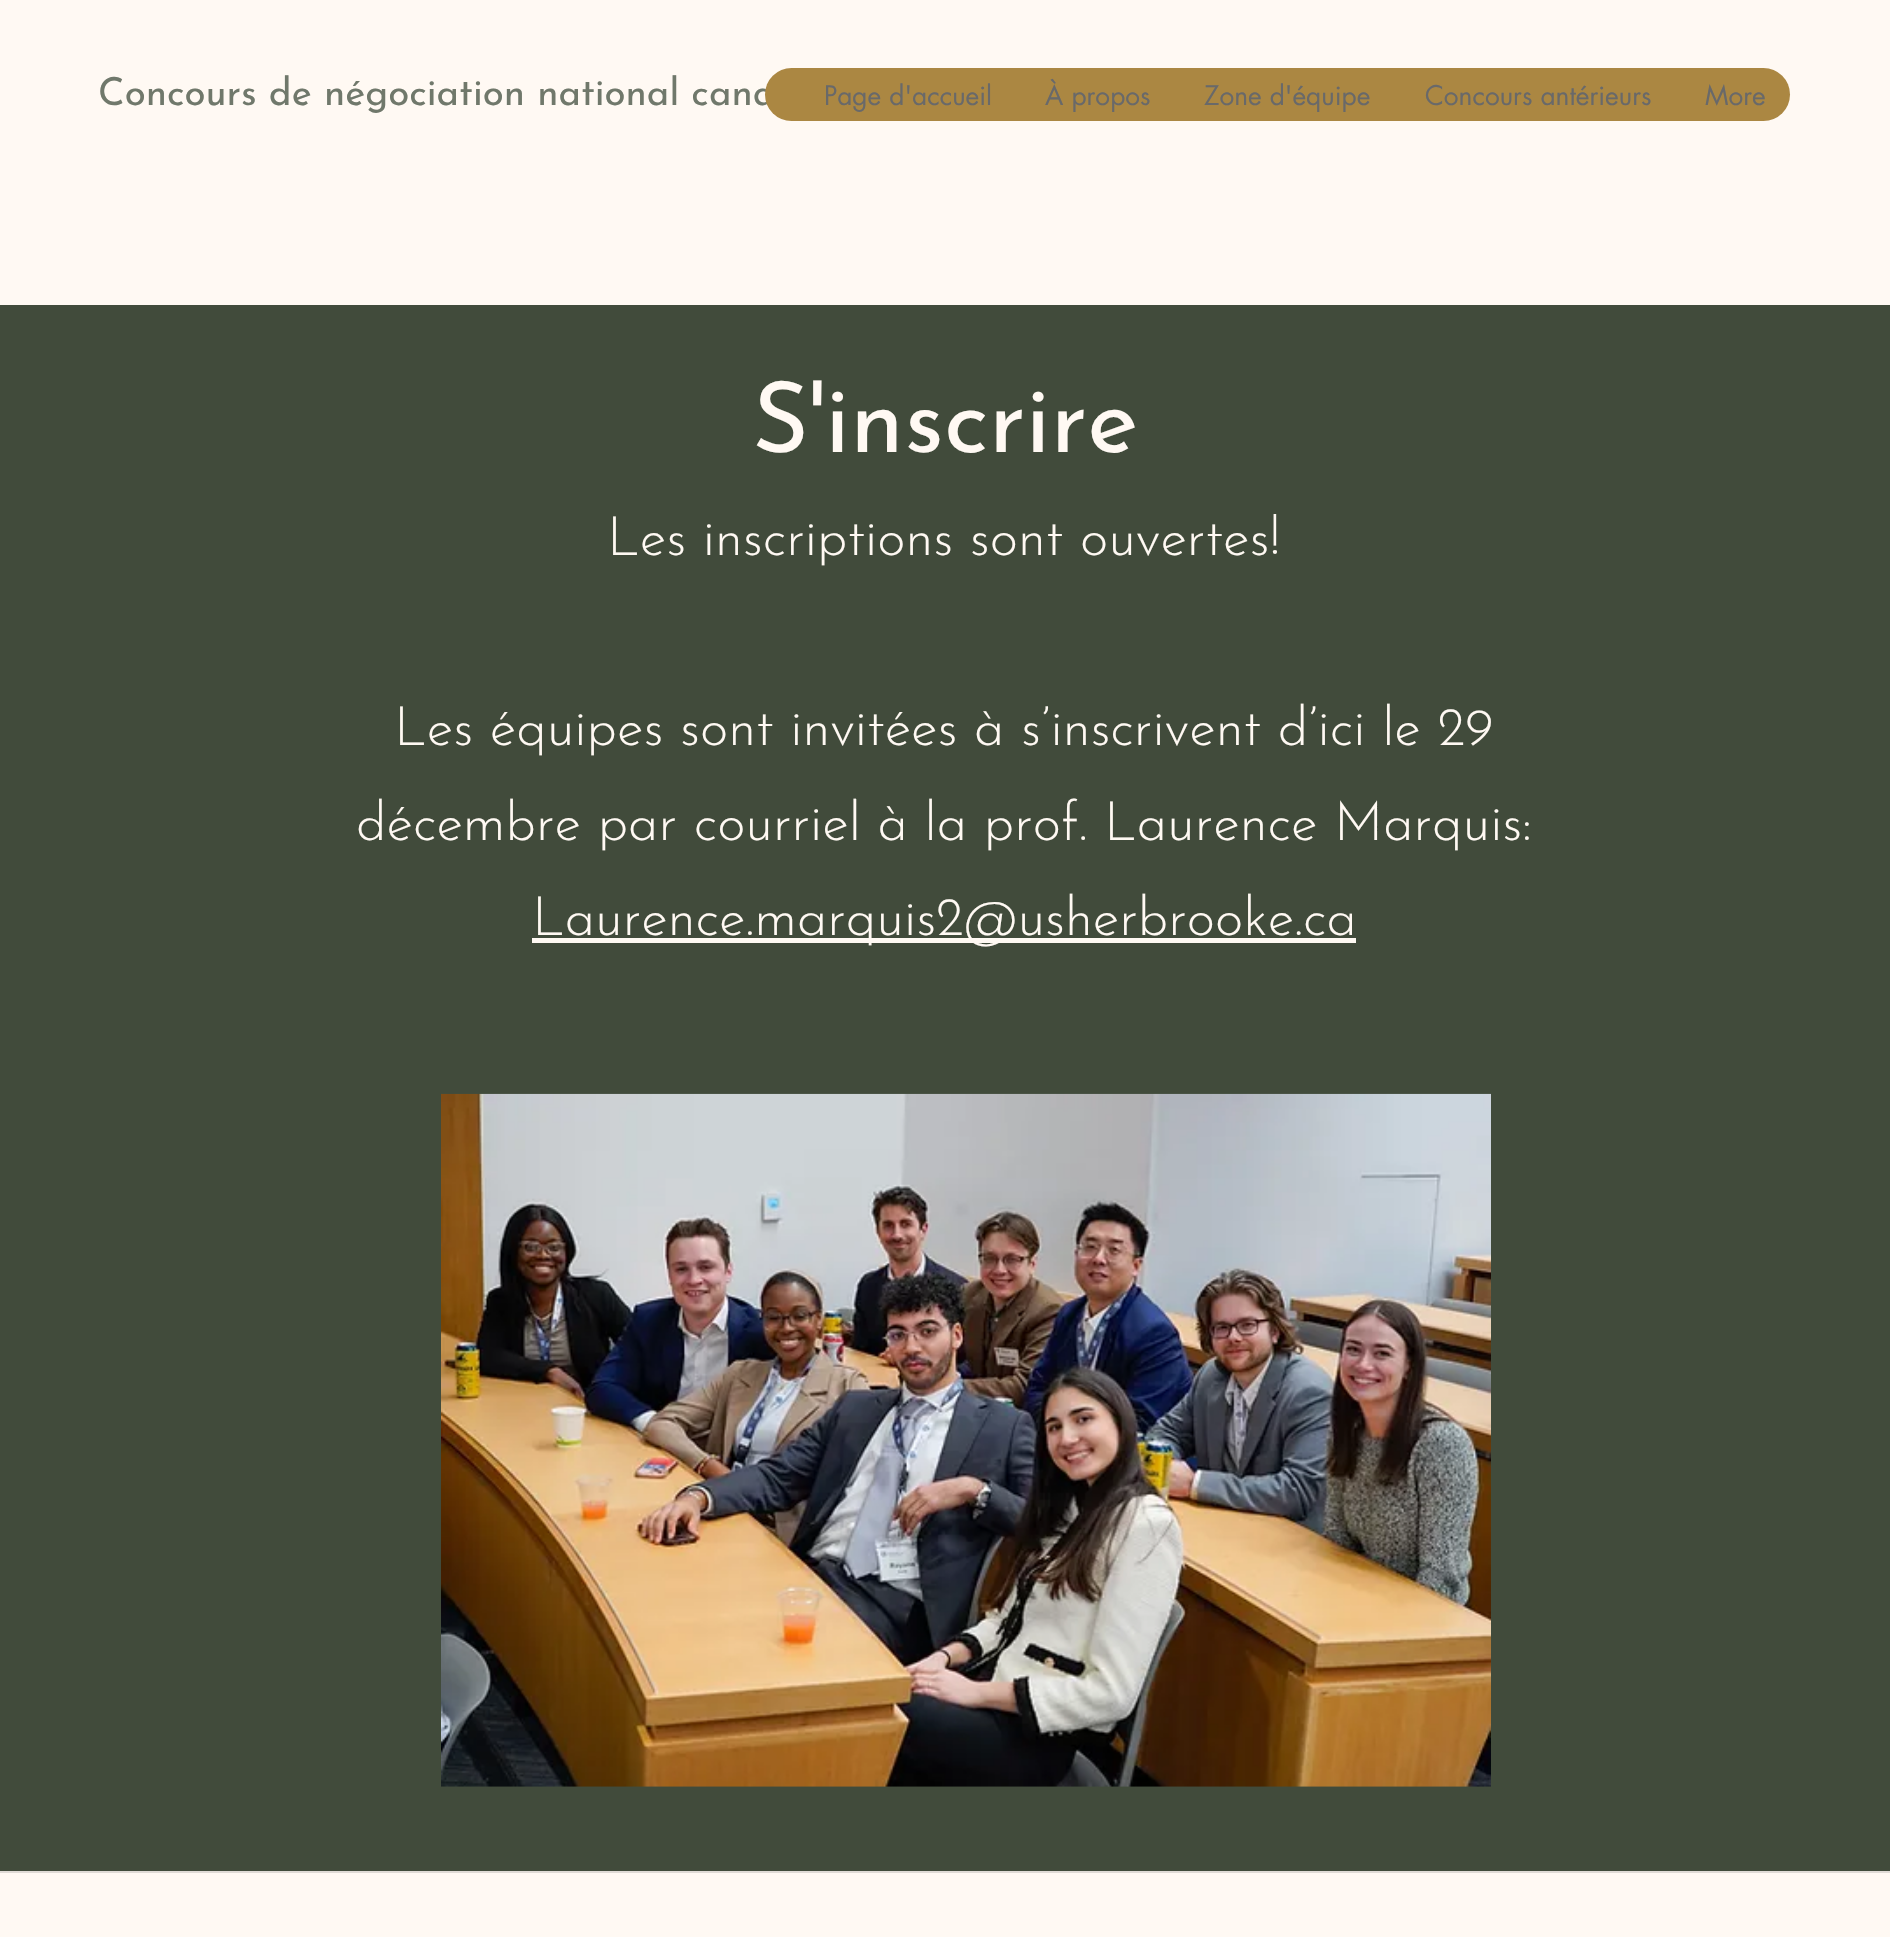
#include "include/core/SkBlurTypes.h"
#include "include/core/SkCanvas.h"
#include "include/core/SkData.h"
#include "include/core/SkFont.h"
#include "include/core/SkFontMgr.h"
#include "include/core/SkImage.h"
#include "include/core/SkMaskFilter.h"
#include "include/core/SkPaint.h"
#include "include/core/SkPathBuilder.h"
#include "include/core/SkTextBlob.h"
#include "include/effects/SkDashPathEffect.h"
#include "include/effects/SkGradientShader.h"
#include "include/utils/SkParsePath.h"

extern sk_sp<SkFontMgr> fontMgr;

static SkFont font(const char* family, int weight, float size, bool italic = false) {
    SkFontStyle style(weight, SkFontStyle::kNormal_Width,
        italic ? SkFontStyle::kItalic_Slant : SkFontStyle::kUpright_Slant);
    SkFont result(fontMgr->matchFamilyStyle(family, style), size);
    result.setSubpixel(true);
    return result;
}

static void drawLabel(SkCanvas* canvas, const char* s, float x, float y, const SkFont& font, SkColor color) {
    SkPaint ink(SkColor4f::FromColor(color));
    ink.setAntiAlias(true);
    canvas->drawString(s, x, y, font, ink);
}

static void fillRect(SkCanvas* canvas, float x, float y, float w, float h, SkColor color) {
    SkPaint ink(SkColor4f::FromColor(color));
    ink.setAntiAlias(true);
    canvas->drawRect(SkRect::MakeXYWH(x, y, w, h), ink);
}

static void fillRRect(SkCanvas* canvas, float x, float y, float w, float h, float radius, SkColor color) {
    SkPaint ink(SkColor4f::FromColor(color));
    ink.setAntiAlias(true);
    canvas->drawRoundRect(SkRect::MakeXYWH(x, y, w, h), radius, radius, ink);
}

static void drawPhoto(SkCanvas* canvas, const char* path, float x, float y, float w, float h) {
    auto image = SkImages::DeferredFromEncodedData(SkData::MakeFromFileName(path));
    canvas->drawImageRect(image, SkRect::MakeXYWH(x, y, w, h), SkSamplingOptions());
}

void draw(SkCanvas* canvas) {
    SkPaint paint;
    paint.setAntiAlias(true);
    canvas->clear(0xFF414B3B);
    fillRect(canvas, 0, 0, 1890, 305, 0xFFFFF9F3);
    SkFont font1 = font("Josefin Sans", 100, 38.5f);
    drawLabel(canvas, "Concours de négociation national cana", 98, 105, font1, 0xFF70786B);
    fillRRect(canvas, 765, 68, 1025, 53, 26.5f, 0xFFAB8742);
    SkFont font2 = font("futura", 400, 26.25f);
    drawLabel(canvas, "Page d'accueil", 824, 105, font2, 0xFF696969);
    drawLabel(canvas, "À propos", 1045, 105, font2, 0xFF696969);
    drawLabel(canvas, "Zone d'équipe", 1204, 105, font2, 0xFF696969);
    drawLabel(canvas, "Concours antérieurs", 1425, 105, font2, 0xFF696969);
    drawLabel(canvas, "More", 1705, 105, font2, 0xFF696969);
    SkFont font3 = font("Josefin Sans", 100, 98);
    drawLabel(canvas, "S'inscrire", 752, 452, font3, 0xFFFFF9F3);
    SkFont font4 = font("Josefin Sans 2", 100, 54.25f);
    drawLabel(canvas, "Les inscriptions sont ouvertes!", 607, 555, font4, 0xFFFFF9F3);
    drawLabel(canvas, "Les équipes sont invitées à s’inscrivent d’ici le 29", 394, 745, font4, 0xFFFFF9F3);
    drawLabel(canvas, "décembre par courriel à la prof. Laurence Marquis:", 356, 840, font4, 0xFFFFF9F3);
    fillRect(canvas, 532, 938, 824, 5, 0xFFFFF9F3);
    drawLabel(canvas, "Laurence.marquis2@usherbrooke.ca", 532, 935, font4, 0xFFFFF9F3);
    drawPhoto(canvas, "assets/img1.png", 441, 1093, 1050, 694);
    fillRect(canvas, 0, 1873, 1890, 64, 0xFFFFF9F3);
    fillRect(canvas, 0, 1871, 1890, 2, 0xFFE0DBD6);
}
